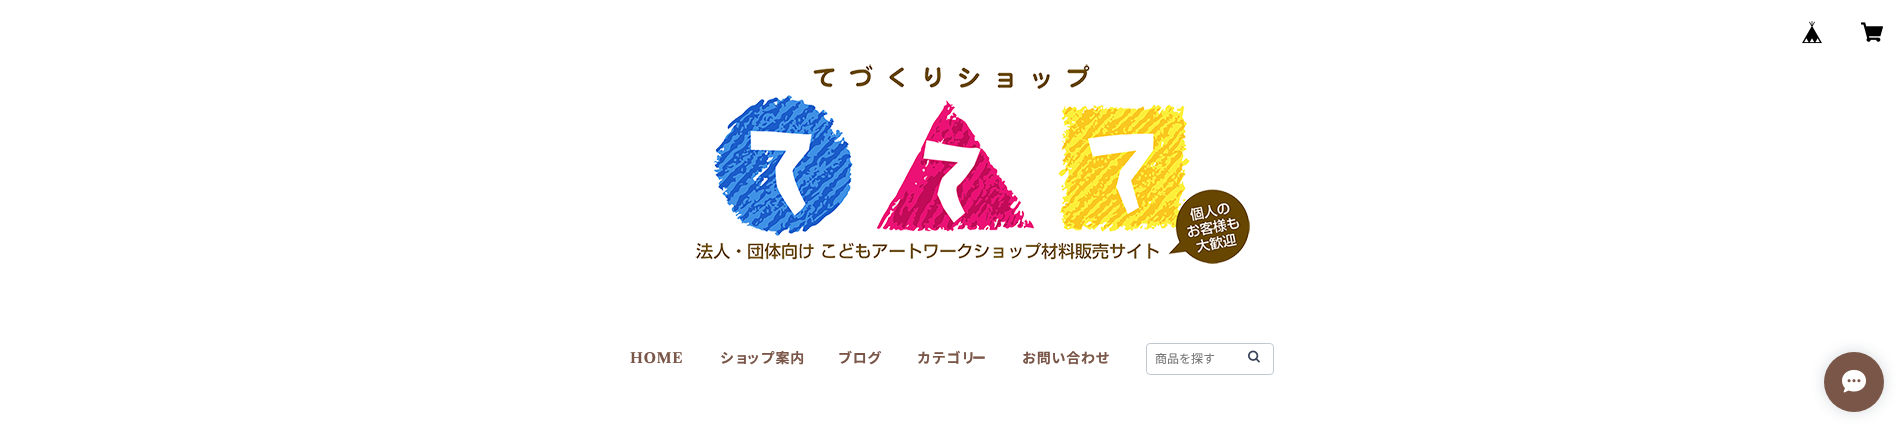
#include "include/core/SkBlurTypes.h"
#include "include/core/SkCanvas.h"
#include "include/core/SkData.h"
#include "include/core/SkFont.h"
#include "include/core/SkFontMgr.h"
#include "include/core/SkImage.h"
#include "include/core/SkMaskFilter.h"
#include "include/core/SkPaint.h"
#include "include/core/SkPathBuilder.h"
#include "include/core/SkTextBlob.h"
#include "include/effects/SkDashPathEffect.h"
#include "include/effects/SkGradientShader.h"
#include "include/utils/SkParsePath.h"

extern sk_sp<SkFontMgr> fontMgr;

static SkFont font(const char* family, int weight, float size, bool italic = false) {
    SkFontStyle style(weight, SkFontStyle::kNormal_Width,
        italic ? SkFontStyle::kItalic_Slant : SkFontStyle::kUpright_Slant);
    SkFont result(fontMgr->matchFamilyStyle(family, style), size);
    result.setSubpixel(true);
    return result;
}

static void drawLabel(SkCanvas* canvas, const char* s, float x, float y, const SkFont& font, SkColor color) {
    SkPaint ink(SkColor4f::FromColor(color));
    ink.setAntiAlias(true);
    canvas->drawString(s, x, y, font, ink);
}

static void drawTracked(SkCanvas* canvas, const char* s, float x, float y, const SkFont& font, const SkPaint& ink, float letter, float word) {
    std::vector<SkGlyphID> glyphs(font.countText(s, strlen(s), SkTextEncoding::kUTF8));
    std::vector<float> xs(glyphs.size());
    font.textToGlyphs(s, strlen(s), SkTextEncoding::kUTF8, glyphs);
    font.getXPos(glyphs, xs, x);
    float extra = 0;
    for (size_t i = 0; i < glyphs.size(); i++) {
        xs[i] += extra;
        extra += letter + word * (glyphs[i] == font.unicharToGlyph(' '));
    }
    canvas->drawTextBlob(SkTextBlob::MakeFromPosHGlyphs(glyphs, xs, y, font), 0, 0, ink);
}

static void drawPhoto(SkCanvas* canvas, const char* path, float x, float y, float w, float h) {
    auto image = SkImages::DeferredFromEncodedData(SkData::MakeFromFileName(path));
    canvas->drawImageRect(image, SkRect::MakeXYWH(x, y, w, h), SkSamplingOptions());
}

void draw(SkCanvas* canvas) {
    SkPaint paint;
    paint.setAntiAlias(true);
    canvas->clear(0xFFFFFFFF);
    drawPhoto(canvas, "assets/img1.png", 1802, 21, 20, 23);
    drawPhoto(canvas, "assets/img2.png", 1861, 22, 22, 20);
    drawPhoto(canvas, "assets/img3.png", 695, 64, 555, 200);
    SkFont font1 = font("Libre Caslon Text", 700, 14);
    paint.setColor(0xFF795648);
    drawTracked(canvas, "HOME", 630, 363, font1, paint, 0.75f, 0);
    SkFont font2 = font("Noto Sans JP", 700, 14);
    drawTracked(canvas, "ショ", 720, 363, font2, paint, 0.75f, 0);
    drawTracked(canvas, "ップ案内", 746, 363, font2, paint, 0.75f, 0);
    drawTracked(canvas, "ブログ", 838, 363, font2, paint, 0.75f, 0);
    drawTracked(canvas, "カテゴリ", 917, 363, font2, paint, 0.75f, 0);
    drawTracked(canvas, "ー", 972, 363, font2, paint, 0.75f, 0);
    drawTracked(canvas, "お問い合わせ", 1022, 363, font2, paint, 0.75f, 0);
    paint.setStroke(true);
    paint.setStrokeWidth(1);
    paint.setColor(0xFFC2C8D2);
    canvas->drawRoundRect(SkRect::MakeXYWH(1146.5f, 343.5f, 127, 31), 3.5f, 3.5f, paint);
    SkFont font3 = font("Noto Sans JP", 400, 12);
    drawLabel(canvas, "商品を探す", 1155, 363, font3, 0xFF757575);
    drawPhoto(canvas, "assets/img4.png", 1248, 350, 12, 13);
    paint.setStroke(false);
    paint.setColor(0x33334258);
    paint.setMaskFilter(SkMaskFilter::MakeBlur(kNormal_SkBlurStyle, 7.5f));
    canvas->drawRoundRect(SkRect::MakeXYWH(1824, 352, 60, 60), 30, 30, paint);
    paint.setMaskFilter(nullptr);
    paint.setColor(0xFF795648);
    canvas->drawCircle(1854, 382, 30, paint);
    drawPhoto(canvas, "assets/img5.png", 1842, 369, 24, 24);
}
